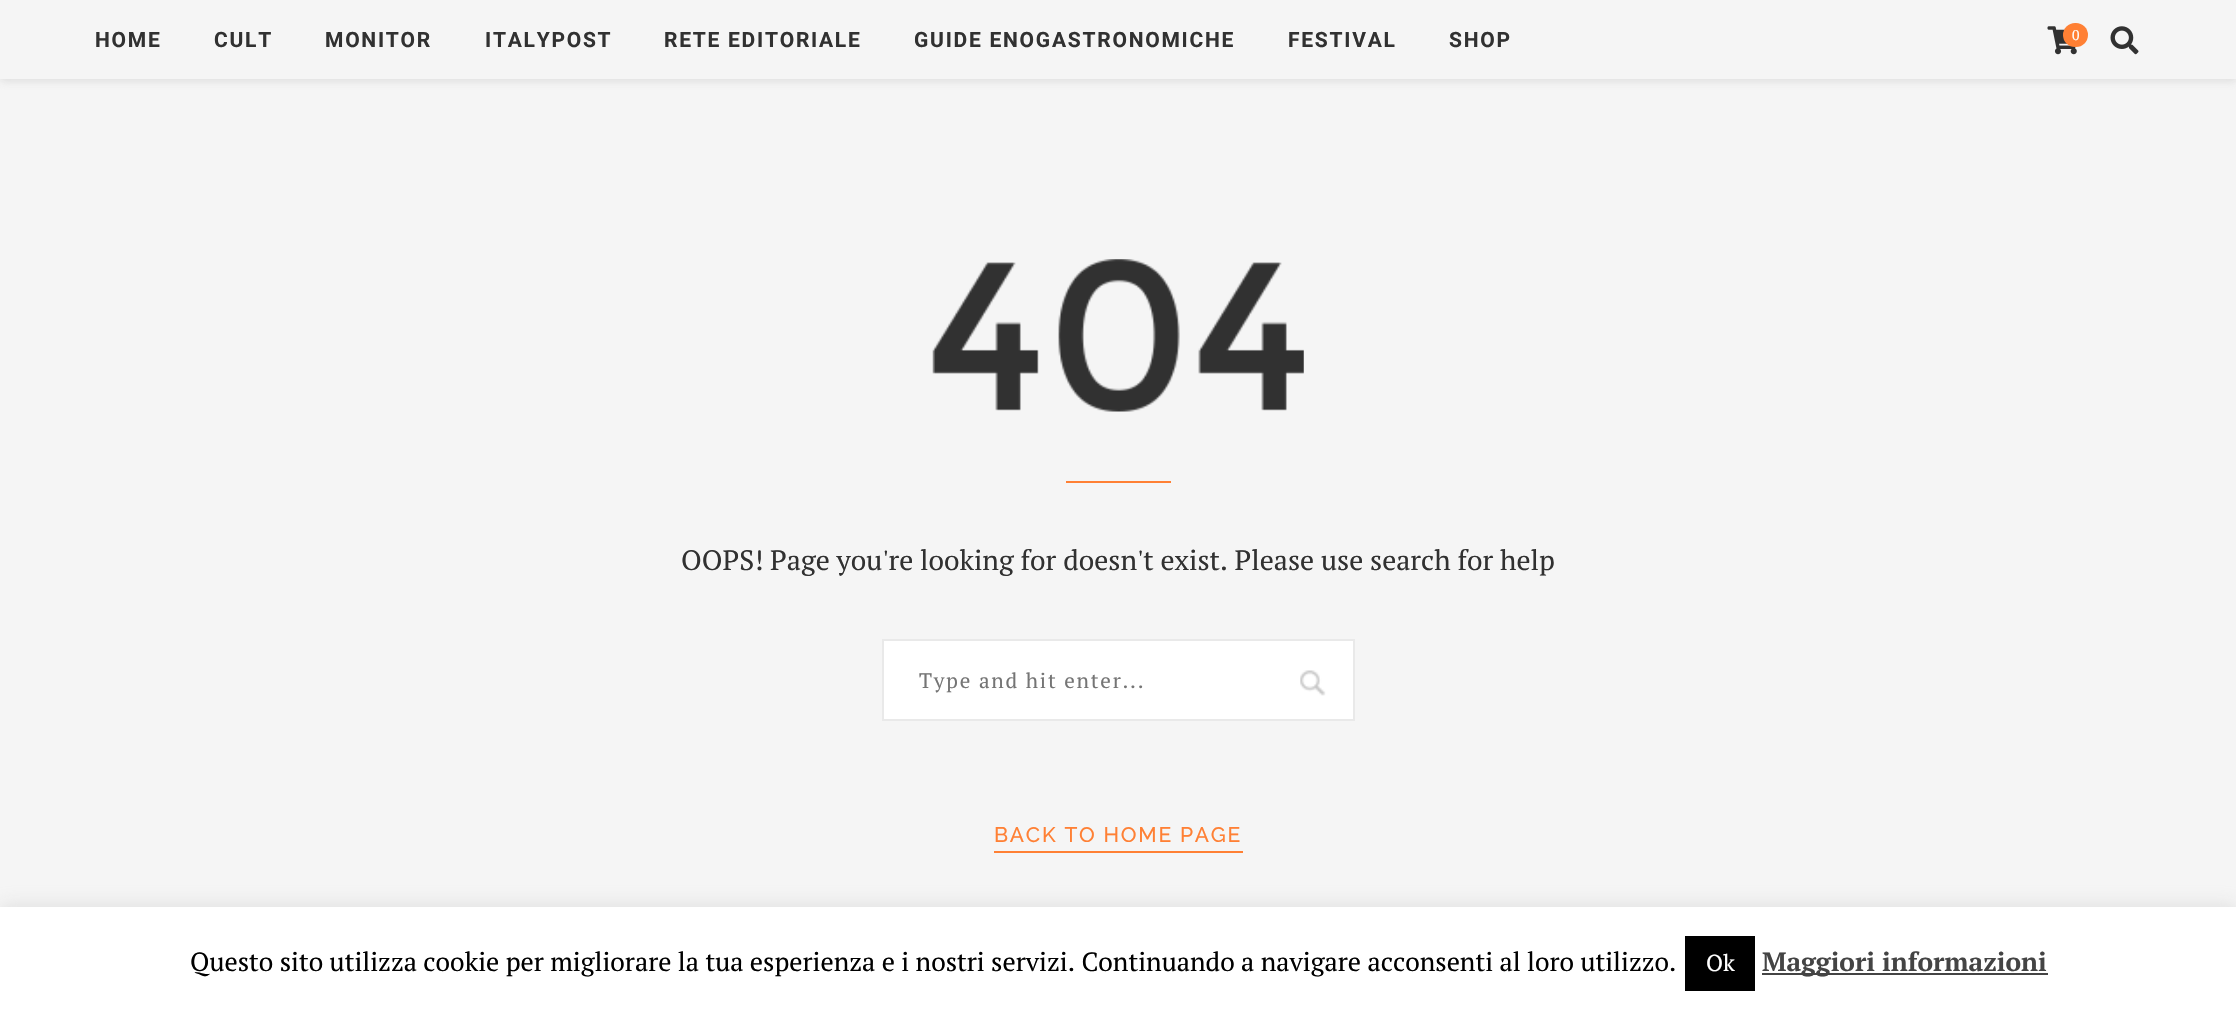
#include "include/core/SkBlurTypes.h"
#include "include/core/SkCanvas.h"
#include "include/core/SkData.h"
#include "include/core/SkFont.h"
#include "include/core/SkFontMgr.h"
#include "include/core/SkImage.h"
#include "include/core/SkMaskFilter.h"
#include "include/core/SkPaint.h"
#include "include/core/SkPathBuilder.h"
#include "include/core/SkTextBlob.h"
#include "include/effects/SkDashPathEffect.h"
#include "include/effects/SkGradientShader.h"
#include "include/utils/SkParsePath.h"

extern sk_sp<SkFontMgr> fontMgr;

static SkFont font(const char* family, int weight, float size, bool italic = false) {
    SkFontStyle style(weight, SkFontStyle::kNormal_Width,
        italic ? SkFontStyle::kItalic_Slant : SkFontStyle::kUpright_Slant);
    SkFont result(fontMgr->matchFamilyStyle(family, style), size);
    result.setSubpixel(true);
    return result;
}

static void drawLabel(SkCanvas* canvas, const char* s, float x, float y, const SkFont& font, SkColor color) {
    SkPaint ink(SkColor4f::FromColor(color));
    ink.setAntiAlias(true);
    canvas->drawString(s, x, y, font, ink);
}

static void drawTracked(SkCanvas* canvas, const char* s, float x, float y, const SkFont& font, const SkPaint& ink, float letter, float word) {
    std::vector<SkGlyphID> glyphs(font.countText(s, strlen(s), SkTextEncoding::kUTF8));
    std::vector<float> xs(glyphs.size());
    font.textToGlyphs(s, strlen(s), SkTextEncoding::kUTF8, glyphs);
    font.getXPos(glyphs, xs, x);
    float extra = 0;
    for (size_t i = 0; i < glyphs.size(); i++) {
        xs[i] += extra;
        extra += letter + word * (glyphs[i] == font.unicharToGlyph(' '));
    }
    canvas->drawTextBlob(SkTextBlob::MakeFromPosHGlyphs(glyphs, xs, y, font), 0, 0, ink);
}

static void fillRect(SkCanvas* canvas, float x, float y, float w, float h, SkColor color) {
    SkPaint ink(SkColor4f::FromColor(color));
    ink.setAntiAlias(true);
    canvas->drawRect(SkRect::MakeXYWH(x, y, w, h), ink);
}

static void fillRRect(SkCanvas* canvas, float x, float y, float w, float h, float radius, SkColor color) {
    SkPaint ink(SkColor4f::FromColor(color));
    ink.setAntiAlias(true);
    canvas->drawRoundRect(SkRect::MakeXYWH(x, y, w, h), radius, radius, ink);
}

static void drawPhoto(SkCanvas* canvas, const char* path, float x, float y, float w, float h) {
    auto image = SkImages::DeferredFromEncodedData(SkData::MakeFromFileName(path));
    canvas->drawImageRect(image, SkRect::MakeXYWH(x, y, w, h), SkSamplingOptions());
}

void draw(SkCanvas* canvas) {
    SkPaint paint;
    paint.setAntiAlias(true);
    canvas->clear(0xFFF5F5F5);
    paint.setColor(0x75BEBEBE);
    paint.setMaskFilter(SkMaskFilter::MakeBlur(kNormal_SkBlurStyle, 4.5f));
    canvas->drawRect(SkRect::MakeXYWH(0, 2, 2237, 79), paint);
    paint.setMaskFilter(nullptr);
    fillRect(canvas, 0, 0, 2236, 79, 0xFFF5F5F5);
    SkFont font1 = font("Roboto", 700, 21);
    paint.setColor(0xFF313131);
    drawTracked(canvas, "HOME", 95, 47, font1, paint, 1.75f, 0);
    drawTracked(canvas, "CULT", 214, 47, font1, paint, 1.75f, 0);
    drawTracked(canvas, "MONITOR", 325, 47, font1, paint, 1.75f, 0);
    drawTracked(canvas, "ITALYPOST", 485, 47, font1, paint, 1.75f, 0);
    drawTracked(canvas, "RETE EDITORIALE", 664, 47, font1, paint, 1.75f, 0);
    drawTracked(canvas, "GUIDE ENOGASTRONOMICHE", 914, 47, font1, paint, 1.75f, 0);
    drawTracked(canvas, "FESTIVAL", 1288, 47, font1, paint, 1.75f, 0);
    drawTracked(canvas, "SHOP", 1449, 47, font1, paint, 1.75f, 0);
    drawPhoto(canvas, "assets/img1.png", 2047, 26, 30, 29);
    fillRRect(canvas, 2063, 23, 25, 24, 12, 0xFFFF8034);
    SkFont font2 = font("PT Serif", 400, 14);
    drawLabel(canvas, "0", 2072, 40, font2, 0xFFFFFFFF);
    drawPhoto(canvas, "assets/img2.png", 2110, 26, 29, 29);
    drawPhoto(canvas, "assets/img3.png", 932, 259, 372, 153);
    fillRect(canvas, 1066, 481, 105, 2, 0xFFFF8034);
    SkFont font3 = font("PT Serif", 400, 28);
    drawLabel(canvas, "OOPS! Page you're looking for doesn't exist. Please use search for help", 681, 570, font3, 0xFF313131);
    fillRect(canvas, 884, 641, 469, 78, 0xFFFFFFFF);
    drawPhoto(canvas, "assets/img4.png", 1300, 670, 26, 26);
    paint.setStroke(true);
    paint.setStrokeWidth(2);
    paint.setColor(0xFFE9E9E9);
    canvas->drawRect(SkRect::MakeXYWH(883, 640, 471, 80), paint);
    SkFont font4 = font("PT Serif", 400, 21);
    paint.setStroke(false);
    paint.setColor(0xFF757575);
    drawTracked(canvas, "Type and hit enter...", 919, 688, font4, paint, 1.75f, 0);
    SkFont font5 = font("Raleway", 500, 21);
    paint.setColor(0xFFFF8034);
    drawTracked(canvas, "BACK TO HOME PAGE", 994, 842, font5, paint, 1.75f, 0);
    fillRect(canvas, 994, 851, 249, 2, 0xFFFF8034);
    paint.setColor(0x4DACABAB);
    paint.setMaskFilter(SkMaskFilter::MakeBlur(kNormal_SkBlurStyle, 9));
    canvas->drawRect(SkRect::MakeXYWH(0, 905, 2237, 105), paint);
    paint.setMaskFilter(nullptr);
    fillRect(canvas, 0, 907, 2236, 103, 0xFFFFFFFF);
    SkFont font6 = font("PT Serif", 400, 26.25f);
    drawLabel(canvas, "Questo sito utilizza cookie per migliorare la tua esperienza e i nostri servizi. Continuando a navigare acconsenti al loro utilizzo.", 190, 971, font6, 0xFF000000);
    fillRect(canvas, 1685, 936, 70, 55, 0xFF000000);
    SkFont font7 = font("PT Serif", 400, 23);
    drawLabel(canvas, "Ok", 1706, 971, font7, 0xFFFFFFFF);
    fillRect(canvas, 1762, 973, 286, 2, 0xFF444444);
    SkFont font8 = font("PT Serif", 700, 26.25f);
    drawLabel(canvas, "Maggiori informazioni", 1762, 971, font8, 0xFF444444);
}
